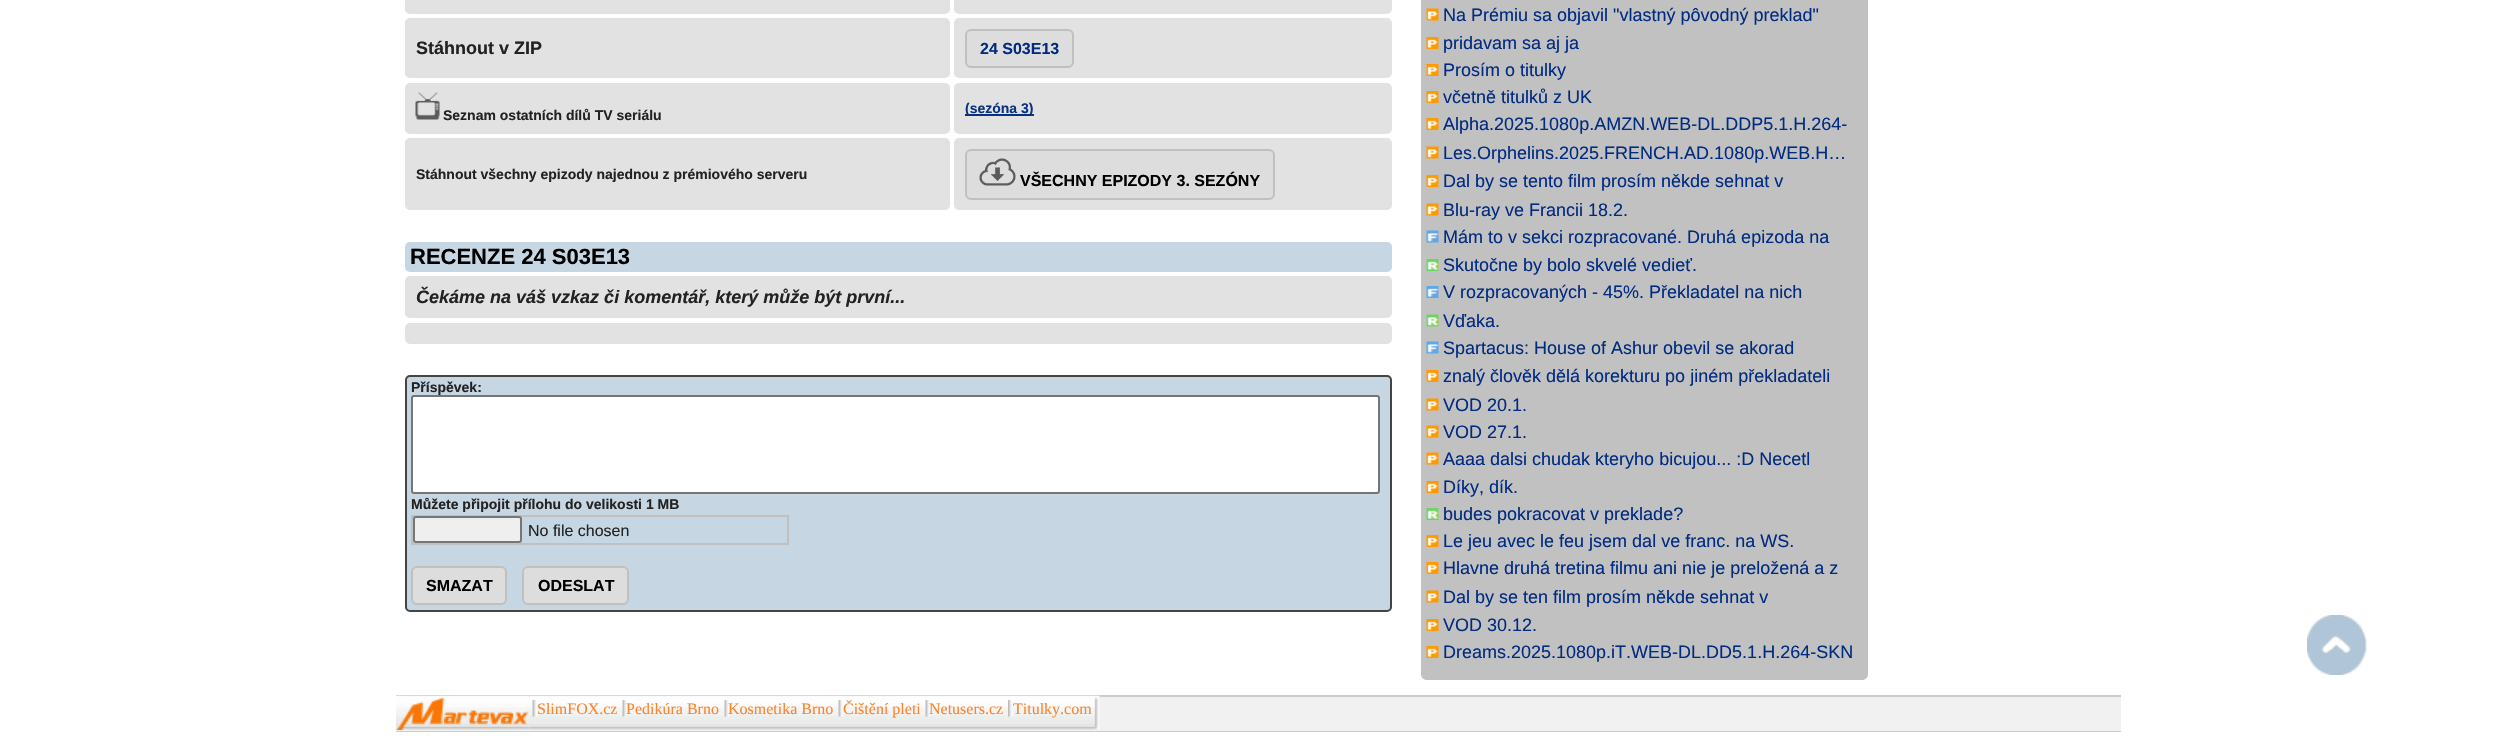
#include "include/core/SkBlurTypes.h"
#include "include/core/SkCanvas.h"
#include "include/core/SkData.h"
#include "include/core/SkFont.h"
#include "include/core/SkFontMgr.h"
#include "include/core/SkImage.h"
#include "include/core/SkMaskFilter.h"
#include "include/core/SkPaint.h"
#include "include/core/SkPathBuilder.h"
#include "include/core/SkTextBlob.h"
#include "include/effects/SkDashPathEffect.h"
#include "include/effects/SkGradientShader.h"
#include "include/utils/SkParsePath.h"

extern sk_sp<SkFontMgr> fontMgr;

static SkFont font(const char* family, int weight, float size, bool italic = false) {
    SkFontStyle style(weight, SkFontStyle::kNormal_Width,
        italic ? SkFontStyle::kItalic_Slant : SkFontStyle::kUpright_Slant);
    SkFont result(fontMgr->matchFamilyStyle(family, style), size);
    result.setSubpixel(true);
    return result;
}

static void drawLabel(SkCanvas* canvas, const char* s, float x, float y, const SkFont& font, SkColor color) {
    SkPaint ink(SkColor4f::FromColor(color));
    ink.setAntiAlias(true);
    canvas->drawString(s, x, y, font, ink);
}

static void fillRect(SkCanvas* canvas, float x, float y, float w, float h, SkColor color) {
    SkPaint ink(SkColor4f::FromColor(color));
    ink.setAntiAlias(true);
    canvas->drawRect(SkRect::MakeXYWH(x, y, w, h), ink);
}

static void fillRRect(SkCanvas* canvas, float x, float y, float w, float h, float radius, SkColor color) {
    SkPaint ink(SkColor4f::FromColor(color));
    ink.setAntiAlias(true);
    canvas->drawRoundRect(SkRect::MakeXYWH(x, y, w, h), radius, radius, ink);
}

static void drawPhoto(SkCanvas* canvas, const char* path, float x, float y, float w, float h) {
    auto image = SkImages::DeferredFromEncodedData(SkData::MakeFromFileName(path));
    canvas->drawImageRect(image, SkRect::MakeXYWH(x, y, w, h), SkSamplingOptions());
}

static SkPath parsePath(const char* data, bool evenOdd = false) {
    SkPath result = *SkParsePath::FromSVGString(data);
    if (evenOdd) result.setFillType(SkPathFillType::kEvenOdd);
    return result;
}

void draw(SkCanvas* canvas) {
    SkPaint paint;
    paint.setAntiAlias(true);
    canvas->clear(0xFFFFFFFF);
    fillRRect(canvas, 405, -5, 545, 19, 5, 0xFFE2E2E2);
    fillRRect(canvas, 954, -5, 438, 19, 5, 0xFFE2E2E2);
    fillRRect(canvas, 405, 18, 545, 60, 5, 0xFFE2E2E2);
    SkFont font1 = font("Liberation Sans", 700, 18);
    drawLabel(canvas, "Stáhnout v ZIP", 416, 54, font1, 0xFF222222);
    fillRRect(canvas, 954, 18, 438, 60, 5, 0xFFE2E2E2);
    paint.setColor(0xFFDDDDDD);
    canvas->drawRoundRect(SkRect::MakeXYWH(966, 30, 107, 37), 5, 5, paint);
    paint.setStroke(true);
    paint.setStrokeWidth(2);
    paint.setColor(0xFFC0C0C0);
    canvas->drawRoundRect(SkRect::MakeXYWH(966, 30, 107, 37), 5, 5, paint);
    SkFont font2 = font("Liberation Sans", 700, 16);
    drawLabel(canvas, "24 S03E13", 980, 54, font2, 0xFF002B81);
    fillRRect(canvas, 405, 83, 545, 51, 5, 0xFFE2E2E2);
    drawPhoto(canvas, "assets/img1.png", 415, 92, 25, 28);
    SkFont font3 = font("Liberation Sans", 700, 14);
    drawLabel(canvas, "Seznam ostatních dílů TV seriálu", 443, 120, font3, 0xFF222222);
    fillRRect(canvas, 954, 83, 438, 51, 5, 0xFFE2E2E2);
    fillRect(canvas, 965, 114, 69, 2, 0xFF083183);
    drawLabel(canvas, "(sezóna 3)", 965, 113, font3, 0xFF083183);
    fillRRect(canvas, 405, 138, 545, 72, 5, 0xFFE2E2E2);
    drawLabel(canvas, "Stáhnout všechny epizody najednou z prémiového serveru", 416, 179, font3, 0xFF222222);
    fillRRect(canvas, 954, 138, 438, 72, 5, 0xFFE2E2E2);
    paint.setStroke(false);
    paint.setColor(0xFFDDDDDD);
    canvas->drawRoundRect(SkRect::MakeXYWH(966, 150, 308, 49), 5, 5, paint);
    paint.setStroke(true);
    paint.setColor(0xFFC0C0C0);
    canvas->drawRoundRect(SkRect::MakeXYWH(966, 150, 308, 49), 5, 5, paint);
    drawPhoto(canvas, "assets/img2.png", 979, 158, 37, 28);
    drawLabel(canvas, "VŠECHNY EPIZODY 3. SEZÓNY", 1020, 186, font2, 0xFF000000);
    fillRRect(canvas, 405, 242, 987, 30, 5, 0xFFC6D6E3);
    SkFont font4 = font("Liberation Sans", 700, 22);
    drawLabel(canvas, "RECENZE 24 S03E13", 410, 264, font4, 0xFF000000);
    fillRRect(canvas, 405, 276, 987, 42, 5, 0xFFE2E2E2);
    SkFont font5 = font("Liberation Sans", 700, 18, true);
    drawLabel(canvas, "Čekáme na váš vzkaz či komentář, který může být první...", 416, 303, font5, 0xFF222222);
    fillRRect(canvas, 405, 323, 987, 21, 5, 0xFFE2E2E2);
    paint.setStroke(false);
    paint.setColor(0xFFC6D6E3);
    canvas->drawRoundRect(SkRect::MakeXYWH(406, 376, 985, 235), 4, 4, paint);
    paint.setStroke(true);
    paint.setColor(0xFF444444);
    canvas->drawRoundRect(SkRect::MakeXYWH(406, 376, 985, 235), 4, 4, paint);
    drawLabel(canvas, "Příspěvek:", 411, 392, font3, 0xFF222222);
    paint.setStroke(false);
    paint.setColor(0xFFFFFFFF);
    canvas->drawRoundRect(SkRect::MakeXYWH(412, 396, 967, 97), 2, 2, paint);
    paint.setStroke(true);
    paint.setColor(0xFF767676);
    canvas->drawRoundRect(SkRect::MakeXYWH(412, 396, 967, 97), 2, 2, paint);
    drawLabel(canvas, "Můžete připojit přílohu do velikosti 1 MB", 411, 509, font3, 0xFF222222);
    paint.setColor(0xFFC0C0C0);
    canvas->drawRect(SkRect::MakeXYWH(412, 516, 376, 28), paint);
    paint.setStroke(false);
    paint.setColor(0xFFEFEFEF);
    canvas->drawRoundRect(SkRect::MakeXYWH(414, 517, 107, 25), 2, 2, paint);
    paint.setStroke(true);
    paint.setColor(0xFF767676);
    canvas->drawRoundRect(SkRect::MakeXYWH(414, 517, 107, 25), 2, 2, paint);
    SkFont font6 = font("Liberation Sans", 400, 16);
    drawLabel(canvas, "No file chosen", 528, 536, font6, 0xFF222222);
    paint.setStroke(false);
    paint.setColor(0xFFDDDDDD);
    canvas->drawRoundRect(SkRect::MakeXYWH(412, 567, 94, 37), 5, 5, paint);
    paint.setStroke(true);
    paint.setColor(0xFFC0C0C0);
    canvas->drawRoundRect(SkRect::MakeXYWH(412, 567, 94, 37), 5, 5, paint);
    drawLabel(canvas, "SMAZAT", 426, 591, font2, 0xFF000000);
    paint.setStroke(false);
    paint.setColor(0xFFDDDDDD);
    canvas->drawRoundRect(SkRect::MakeXYWH(523, 567, 105, 37), 5, 5, paint);
    paint.setStroke(true);
    paint.setColor(0xFFC0C0C0);
    canvas->drawRoundRect(SkRect::MakeXYWH(523, 567, 105, 37), 5, 5, paint);
    drawLabel(canvas, "ODESLAT", 538, 591, font2, 0xFF000000);
    paint.setStroke(false);
    paint.setColor(0xFFC1C1C1);
    canvas->drawPath(parsePath("M1421-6H1868V674C1868 677.5 1865.5 680 1862 680H1427C1423.5 680 1421 677.5 1421 674Z"), paint);
    drawPhoto(canvas, "assets/img3.png", 1426, 8, 13, 13);
    SkFont font7 = font("Liberation Sans", 400, 18);
    drawLabel(canvas, "Na Prémiu sa objavil \"vlastný pôvodný preklad\"", 1443, 21, font7, 0xFF002B81);
    drawPhoto(canvas, "assets/img4.png", 1426, 37, 13, 12);
    drawLabel(canvas, "pridavam sa aj ja", 1443, 49, font7, 0xFF002B81);
    drawPhoto(canvas, "assets/img4.png", 1426, 64, 13, 12);
    drawLabel(canvas, "Prosím o titulky", 1443, 76, font7, 0xFF002B81);
    drawPhoto(canvas, "assets/img4.png", 1426, 91, 13, 12);
    drawLabel(canvas, "včetně titulků z UK", 1443, 103, font7, 0xFF002B81);
    drawPhoto(canvas, "assets/img4.png", 1426, 118, 13, 12);
    drawLabel(canvas, "Alpha.2025.1080p.AMZN.WEB-DL.DDP5.1.H.264-", 1443, 130, font7, 0xFF002B81);
    drawPhoto(canvas, "assets/img3.png", 1426, 146, 13, 13);
    drawLabel(canvas, "Les.Orphelins.2025.FRENCH.AD.1080p.WEB.H…", 1443, 159, font7, 0xFF002B81);
    drawPhoto(canvas, "assets/img4.png", 1426, 175, 13, 12);
    drawLabel(canvas, "Dal by se tento film prosím někde sehnat v", 1443, 187, font7, 0xFF002B81);
    drawPhoto(canvas, "assets/img3.png", 1426, 203, 13, 13);
    drawLabel(canvas, "Blu-ray ve Francii 18.2.", 1443, 216, font7, 0xFF002B81);
    drawPhoto(canvas, "assets/img5.png", 1426, 230, 13, 13);
    drawLabel(canvas, "Mám to v sekci rozpracované. Druhá epizoda na", 1443, 243, font7, 0xFF002B81);
    drawPhoto(canvas, "assets/img6.png", 1426, 259, 13, 12);
    drawLabel(canvas, "Skutočne by bolo skvelé vedieť.", 1443, 271, font7, 0xFF002B81);
    drawPhoto(canvas, "assets/img7.png", 1426, 286, 13, 12);
    drawLabel(canvas, "V rozpracovaných - 45%. Překladatel na nich", 1443, 298, font7, 0xFF002B81);
    drawPhoto(canvas, "assets/img8.png", 1426, 314, 13, 13);
    drawLabel(canvas, "Vďaka.", 1443, 327, font7, 0xFF002B81);
    drawPhoto(canvas, "assets/img5.png", 1426, 341, 13, 13);
    drawLabel(canvas, "Spartacus: House of Ashur obevil se akorad", 1443, 354, font7, 0xFF002B81);
    drawPhoto(canvas, "assets/img4.png", 1426, 370, 13, 12);
    drawLabel(canvas, "znalý člověk dělá korekturu po jiném překladateli", 1443, 382, font7, 0xFF002B81);
    drawPhoto(canvas, "assets/img3.png", 1426, 398, 13, 13);
    drawLabel(canvas, "VOD 20.1.", 1443, 411, font7, 0xFF002B81);
    drawPhoto(canvas, "assets/img3.png", 1426, 425, 13, 13);
    drawLabel(canvas, "VOD 27.1.", 1443, 438, font7, 0xFF002B81);
    drawPhoto(canvas, "assets/img3.png", 1426, 452, 13, 13);
    drawLabel(canvas, "Aaaa dalsi chudak kteryho bicujou... :D Necetl", 1443, 465, font7, 0xFF002B81);
    drawPhoto(canvas, "assets/img4.png", 1426, 481, 13, 12);
    drawLabel(canvas, "Díky, dík.", 1443, 493, font7, 0xFF002B81);
    drawPhoto(canvas, "assets/img6.png", 1426, 508, 13, 12);
    drawLabel(canvas, "budes pokracovat v preklade?", 1443, 520, font7, 0xFF002B81);
    drawPhoto(canvas, "assets/img4.png", 1426, 535, 13, 12);
    drawLabel(canvas, "Le jeu avec le feu jsem dal ve franc. na WS.", 1443, 547, font7, 0xFF002B81);
    drawPhoto(canvas, "assets/img4.png", 1426, 562, 13, 12);
    drawLabel(canvas, "Hlavne druhá tretina filmu ani nie je preložená a z", 1443, 574, font7, 0xFF002B81);
    drawPhoto(canvas, "assets/img3.png", 1426, 590, 13, 13);
    drawLabel(canvas, "Dal by se ten film prosím někde sehnat v", 1443, 603, font7, 0xFF002B81);
    drawPhoto(canvas, "assets/img4.png", 1426, 619, 13, 12);
    drawLabel(canvas, "VOD 30.12.", 1443, 631, font7, 0xFF002B81);
    drawPhoto(canvas, "assets/img4.png", 1426, 646, 13, 12);
    drawLabel(canvas, "Dreams.2025.1080p.iT.WEB-DL.DD5.1.H.264-SKN", 1443, 658, font7, 0xFF002B81);
    fillRect(canvas, 396, 697, 1725, 34, 0xFFF1F1F1);
    fillRect(canvas, 396, 695, 1725, 2, 0xFFCCCCCC);
    fillRect(canvas, 396, 731, 1725, 1, 0xFFCCCCCC);
    drawPhoto(canvas, "assets/img10.png", 529, 695, 563, 35);
    drawPhoto(canvas, "assets/img9.png", 396, 695, 134, 35);
    drawPhoto(canvas, "assets/img11.png", 532, 700, 5, 17);
    SkFont font8 = font("Liberation Serif", 400, 16);
    drawLabel(canvas, "SlimFOX.cz", 537, 714, font8, 0xFFF9852D);
    drawPhoto(canvas, "assets/img11.png", 622, 700, 5, 17);
    drawLabel(canvas, "Pedikúra Brno", 626, 714, font8, 0xFFF9852D);
    drawPhoto(canvas, "assets/img11.png", 724, 700, 5, 17);
    drawLabel(canvas, "Kosmetika Brno", 728, 714, font8, 0xFFF9852D);
    drawPhoto(canvas, "assets/img12.png", 838, 700, 5, 17);
    drawLabel(canvas, "Čištění pleti", 843, 714, font8, 0xFFF9852D);
    drawPhoto(canvas, "assets/img12.png", 925, 700, 5, 17);
    drawLabel(canvas, "Netusers.cz", 929, 714, font8, 0xFFF9852D);
    drawPhoto(canvas, "assets/img13.png", 1008, 700, 5, 17);
    drawLabel(canvas, "Titulky.com", 1013, 714, font8, 0xFFF9852D);
    drawPhoto(canvas, "assets/img14.png", 1092, 695, 8, 35);
    drawPhoto(canvas, "assets/img15.png", 2307, 615, 60, 60);
}
